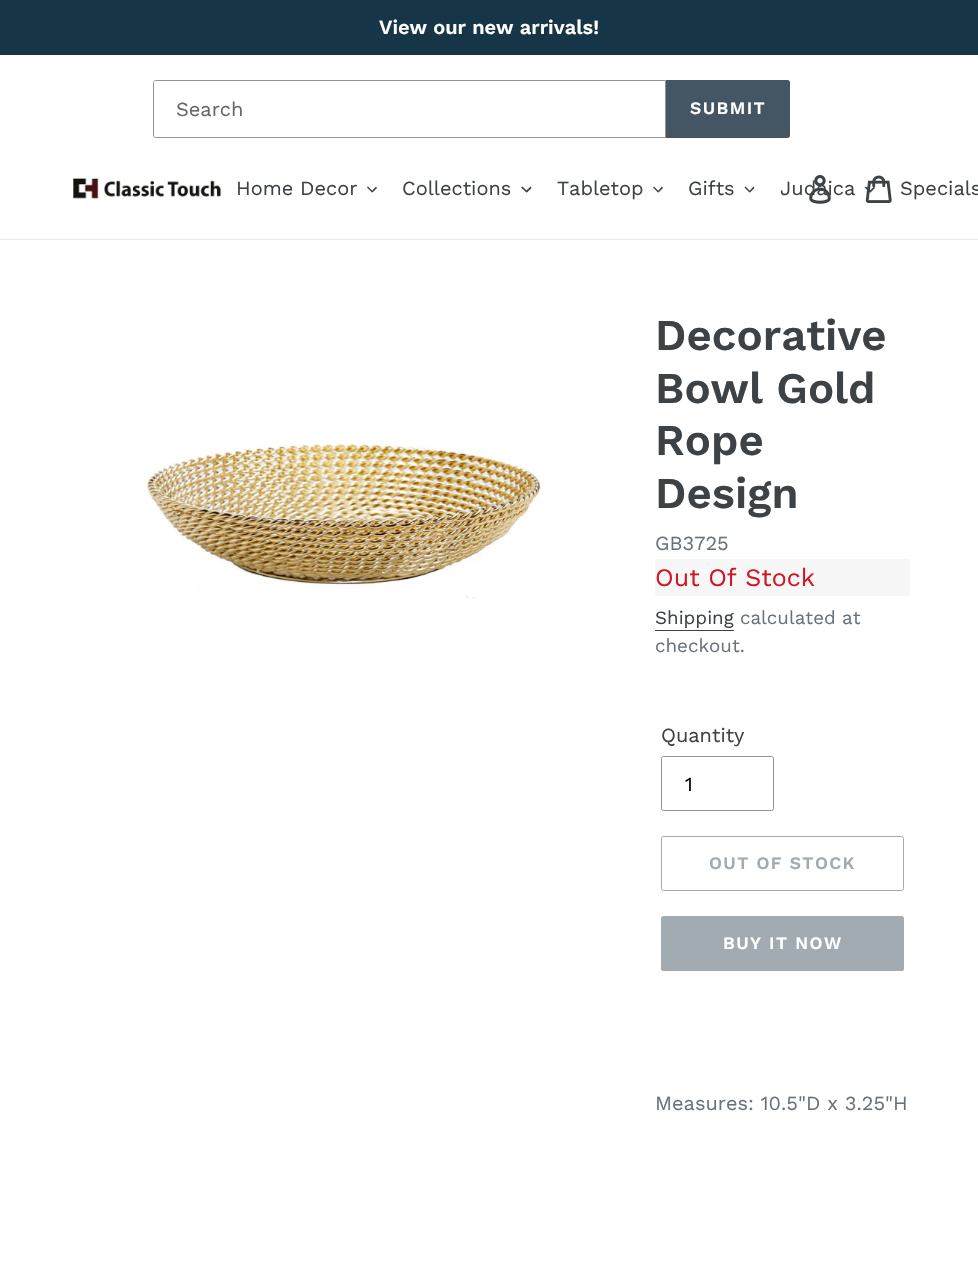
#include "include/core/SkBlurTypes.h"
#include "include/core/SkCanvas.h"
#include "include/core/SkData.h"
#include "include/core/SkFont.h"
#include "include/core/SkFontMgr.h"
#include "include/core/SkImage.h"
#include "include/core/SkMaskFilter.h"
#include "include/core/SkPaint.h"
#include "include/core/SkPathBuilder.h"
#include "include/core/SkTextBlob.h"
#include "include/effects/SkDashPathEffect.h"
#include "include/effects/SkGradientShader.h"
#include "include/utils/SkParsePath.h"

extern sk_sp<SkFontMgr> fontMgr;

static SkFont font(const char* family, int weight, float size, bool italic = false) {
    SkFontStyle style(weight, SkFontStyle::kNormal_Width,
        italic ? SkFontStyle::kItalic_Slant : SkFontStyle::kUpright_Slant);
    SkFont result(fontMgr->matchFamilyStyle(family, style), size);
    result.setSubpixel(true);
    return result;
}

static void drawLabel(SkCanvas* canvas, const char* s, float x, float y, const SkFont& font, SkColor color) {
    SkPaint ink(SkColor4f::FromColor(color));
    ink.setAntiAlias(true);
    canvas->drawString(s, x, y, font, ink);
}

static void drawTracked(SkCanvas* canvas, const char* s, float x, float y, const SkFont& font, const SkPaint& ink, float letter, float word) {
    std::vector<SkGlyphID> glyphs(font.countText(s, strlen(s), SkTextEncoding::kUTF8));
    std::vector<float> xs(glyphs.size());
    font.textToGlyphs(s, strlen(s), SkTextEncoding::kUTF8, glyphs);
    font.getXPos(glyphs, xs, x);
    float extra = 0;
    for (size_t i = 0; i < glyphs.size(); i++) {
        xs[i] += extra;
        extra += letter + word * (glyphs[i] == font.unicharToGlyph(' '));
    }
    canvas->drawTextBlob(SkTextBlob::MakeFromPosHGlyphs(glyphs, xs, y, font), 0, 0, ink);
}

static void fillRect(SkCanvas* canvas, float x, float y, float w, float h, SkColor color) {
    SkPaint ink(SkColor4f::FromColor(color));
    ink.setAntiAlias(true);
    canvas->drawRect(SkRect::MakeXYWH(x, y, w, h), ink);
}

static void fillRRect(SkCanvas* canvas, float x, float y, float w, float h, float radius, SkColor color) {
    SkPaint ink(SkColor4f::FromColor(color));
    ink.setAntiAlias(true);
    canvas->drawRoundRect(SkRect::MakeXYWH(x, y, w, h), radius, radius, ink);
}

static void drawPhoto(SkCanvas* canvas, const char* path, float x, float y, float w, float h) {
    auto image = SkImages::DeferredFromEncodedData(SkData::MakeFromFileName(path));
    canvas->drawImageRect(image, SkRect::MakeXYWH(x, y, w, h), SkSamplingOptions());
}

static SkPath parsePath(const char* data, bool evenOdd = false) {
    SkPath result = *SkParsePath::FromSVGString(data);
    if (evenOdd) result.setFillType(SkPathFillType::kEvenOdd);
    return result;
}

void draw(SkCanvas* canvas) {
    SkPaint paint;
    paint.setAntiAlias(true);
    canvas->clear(0xFFFFFFFF);
    fillRect(canvas, 0, 0, 978, 55, 0xFF163546);
    SkFont font1 = font("Work Sans", 600, 20);
    drawLabel(canvas, "View our new arrivals!", 379, 34, font1, 0xFFFFFFFF);
    paint.setStroke(true);
    paint.setStrokeWidth(1);
    paint.setColor(0xFF949494);
    canvas->drawPath(parsePath("M155.5 80.5H665.5V137.5H155.5C154.5 137.5 153.5 136.5 153.5 135.5V82.5C153.5 81.5 154.5 80.5 155.5 80.5Z"), paint);
    SkFont font2 = font("Work Sans", 400, 20);
    drawLabel(canvas, "Search", 176, 116, font2, 0xFF666666);
    paint.setStroke(false);
    paint.setColor(0xFF445663);
    canvas->drawPath(parsePath("M666 80H787.5C789 80 790 81 790 82.5V135.5C790 137 789 138 787.5 138H666Z"), paint);
    SkFont font3 = font("Work Sans", 600, 17.5f);
    paint.setColor(0xFFFFFFFF);
    drawTracked(canvas, "SUBMIT", 690, 114, font3, paint, 1.4f, 0);
    fillRect(canvas, 0, 239, 978, 1, 0xFFE8E9EB);
    drawPhoto(canvas, "assets/img1.png", 73, 178, 148, 21);
    drawPhoto(canvas, "assets/img2.png", 809, 175, 22, 29);
    drawPhoto(canvas, "assets/img3.png", 865, 175, 27, 28);
    drawLabel(canvas, "Home Decor", 236, 195, font2, 0xFF3D4246);
    paint.setColor(0xFF3D4246);
    canvas->drawPath(parsePath("M376 186.5L377 188L372.5 192.5L371.5 191.5Z"), paint);
    canvas->drawPath(parsePath("M368 186.5L373 191.5L372 192.5L367 187.5Z"), paint);
    drawLabel(canvas, "Collections", 402, 195, font2, 0xFF3D4246);
    canvas->drawPath(parsePath("M530.5 186.5L531.5 188L527 192.5L525.5 191.5Z"), paint);
    canvas->drawPath(parsePath("M522.5 186.5L527.5 191.5L526.5 192.5L521 187.5Z"), paint);
    drawLabel(canvas, "Tabletop", 557, 195, font2, 0xFF3D4246);
    canvas->drawPath(parsePath("M662 186.5L663 188L658.5 192.5L657.5 191.5Z"), paint);
    canvas->drawPath(parsePath("M654 186.5L659 191.5L658 192.5L653 187.5Z"), paint);
    drawLabel(canvas, "Gifts", 688, 195, font2, 0xFF3D4246);
    canvas->drawPath(parsePath("M753.5 186.5L754.5 188L750 192.5L749 191.5Z"), paint);
    canvas->drawPath(parsePath("M745.5 186.5L750.5 191.5L749.5 192.5L744.5 187.5Z"), paint);
    drawLabel(canvas, "Judaica", 780, 195, font2, 0xFF3D4246);
    canvas->drawPath(parsePath("M874 186.5L875 188L870.5 192.5L869 191.5Z"), paint);
    canvas->drawPath(parsePath("M866 186.5L871 191.5L870 192.5L864.5 187.5Z"), paint);
    drawLabel(canvas, "Specials", 900, 195, font2, 0xFF3D4246);
    drawPhoto(canvas, "assets/img4.png", 145, 442, 396, 157);
    SkFont font4 = font("Work Sans", 600, 43.75f);
    drawLabel(canvas, "Decorative", 655, 350, font4, 0xFF3D4246);
    drawLabel(canvas, "Bowl Gold", 655, 403, font4, 0xFF3D4246);
    drawLabel(canvas, "Rope", 655, 455, font4, 0xFF3D4246);
    drawLabel(canvas, "Design", 655, 508, font4, 0xFF3D4246);
    drawLabel(canvas, "GB3725", 655, 550, font2, 0xFF69727B);
    fillRect(canvas, 655, 559, 255, 37, 0xFFF7F7F7);
    SkFont font5 = font("Work Sans", 400, 25);
    drawLabel(canvas, "Out Of Stock", 655, 586, font5, 0xFFD21625);
    SkFont font6 = font("Work Sans", 400, 18.75f);
    drawLabel(canvas, "Shipping", 655, 624, font6, 0xFF3D4246);
    fillRect(canvas, 655, 630, 79, 1, 0xFF3D4246);
    drawLabel(canvas, "calculated at", 740, 624, font6, 0xFF69727B);
    drawLabel(canvas, "checkout.", 655, 652, font6, 0xFF69727B);
    drawLabel(canvas, "Quantity", 661, 742, font2, 0xFF3D4246);
    paint.setStroke(true);
    paint.setColor(0xFF949494);
    canvas->drawRoundRect(SkRect::MakeXYWH(661.5f, 756.5f, 112, 54), 2, 2, paint);
    drawLabel(canvas, "1", 685, 791, font2, 0xFF000000);
    paint.setColor(0xFFA2ABB1);
    canvas->drawRoundRect(SkRect::MakeXYWH(661.5f, 836.5f, 242, 54), 2, 2, paint);
    paint.setStroke(false);
    drawTracked(canvas, "OUT OF STOCK", 709, 869, font3, paint, 1.4f, 0);
    fillRRect(canvas, 661, 916, 243, 55, 2.5f, 0xFFA2ABB1);
    paint.setColor(0xFFFFFFFF);
    drawTracked(canvas, "BUY IT NOW", 723, 949, font3, paint, 1.4f, 0);
    drawLabel(canvas, "Measures: 10.5\"D x 3.25\"H", 655, 1110, font2, 0xFF69727B);
}
